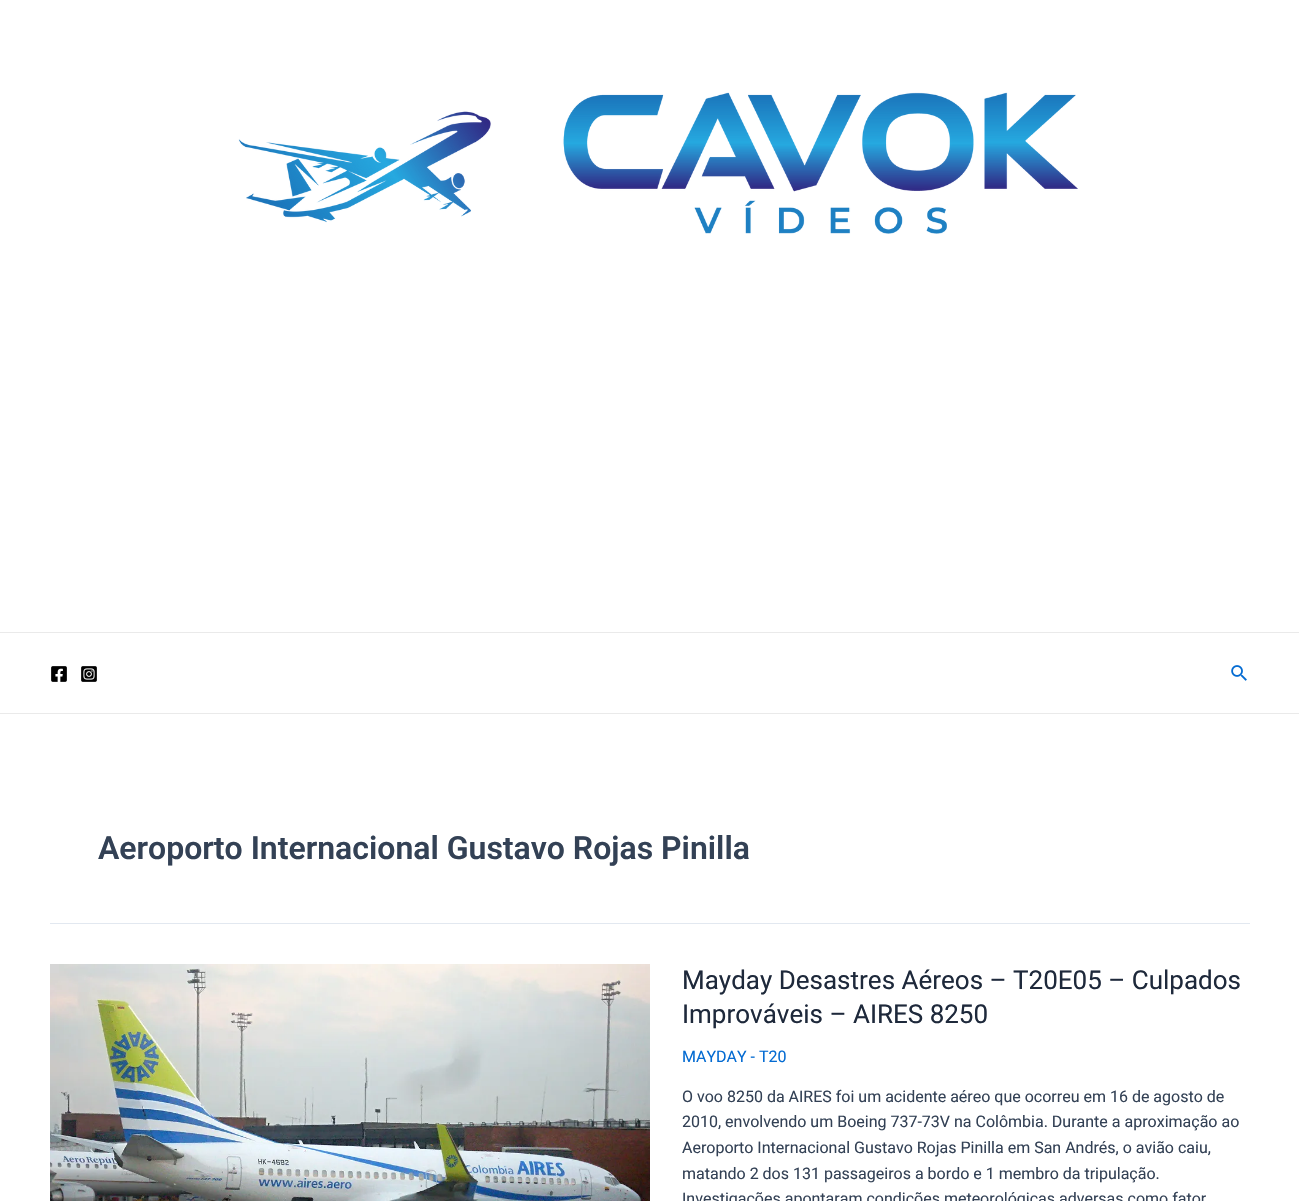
#include "include/core/SkBlurTypes.h"
#include "include/core/SkCanvas.h"
#include "include/core/SkData.h"
#include "include/core/SkFont.h"
#include "include/core/SkFontMgr.h"
#include "include/core/SkImage.h"
#include "include/core/SkMaskFilter.h"
#include "include/core/SkPaint.h"
#include "include/core/SkPathBuilder.h"
#include "include/core/SkTextBlob.h"
#include "include/effects/SkDashPathEffect.h"
#include "include/effects/SkGradientShader.h"
#include "include/utils/SkParsePath.h"

extern sk_sp<SkFontMgr> fontMgr;

static SkFont font(const char* family, int weight, float size, bool italic = false) {
    SkFontStyle style(weight, SkFontStyle::kNormal_Width,
        italic ? SkFontStyle::kItalic_Slant : SkFontStyle::kUpright_Slant);
    SkFont result(fontMgr->matchFamilyStyle(family, style), size);
    result.setSubpixel(true);
    return result;
}

static void drawLabel(SkCanvas* canvas, const char* s, float x, float y, const SkFont& font, SkColor color) {
    SkPaint ink(SkColor4f::FromColor(color));
    ink.setAntiAlias(true);
    canvas->drawString(s, x, y, font, ink);
}

static void fillRect(SkCanvas* canvas, float x, float y, float w, float h, SkColor color) {
    SkPaint ink(SkColor4f::FromColor(color));
    ink.setAntiAlias(true);
    canvas->drawRect(SkRect::MakeXYWH(x, y, w, h), ink);
}

static void drawPhoto(SkCanvas* canvas, const char* path, float x, float y, float w, float h) {
    auto image = SkImages::DeferredFromEncodedData(SkData::MakeFromFileName(path));
    canvas->drawImageRect(image, SkRect::MakeXYWH(x, y, w, h), SkSamplingOptions());
}

void draw(SkCanvas* canvas) {
    SkPaint paint;
    paint.setAntiAlias(true);
    canvas->clear(0xFFFFFFFF);
    fillRect(canvas, 0, 632, 1299, 1, 0xFFEAEAEA);
    drawPhoto(canvas, "assets/img1.png", 238, 92, 840, 142);
    fillRect(canvas, 0, 713, 1299, 1, 0xFFEAEAEA);
    drawPhoto(canvas, "assets/img2.png", 51, 666, 16, 16);
    drawPhoto(canvas, "assets/img3.png", 81, 666, 16, 16);
    drawPhoto(canvas, "assets/img4.png", 1231, 665, 16, 16);
    fillRect(canvas, 50, 923, 1200, 1, 0xFFE2E8F0);
    SkFont font1 = font("Roboto", 600, 32);
    drawLabel(canvas, "Aeroporto Internacional Gustavo Rojas Pinilla", 98, 859, font1, 0xFF334155);
    drawPhoto(canvas, "assets/img5.png", 50, 964, 600, 237);
    SkFont font2 = font("Roboto", 400, 26);
    drawLabel(canvas, "Mayday Desastres Aéreos – T20E05 – Culpados", 682, 989, font2, 0xFF1E293B);
    drawLabel(canvas, "Improváveis – AIRES 8250", 682, 1023, font2, 0xFF1E293B);
    SkFont font3 = font("Roboto", 400, 16);
    drawLabel(canvas, "MAYDAY - T20", 682, 1062, font3, 0xFF046BD2);
    drawLabel(canvas, "O voo 8250 da AIRES foi um acidente aéreo que ocorreu em 16 de agosto de", 682, 1102, font3, 0xFF334155);
    drawLabel(canvas, "2010, envolvendo um Boeing 737-73V na Colômbia. Durante a aproximação ao", 682, 1127, font3, 0xFF334155);
    drawLabel(canvas, "Aeroporto Internacional Gustavo Rojas Pinilla em San Andrés, o avião caiu,", 682, 1153, font3, 0xFF334155);
    drawLabel(canvas, "matando 2 dos 131 passageiros a bordo e 1 membro da tripulação.", 682, 1179, font3, 0xFF334155);
    drawLabel(canvas, "Investigações apontaram condições meteorológicas adversas como fator", 682, 1204, font3, 0xFF334155);
}
